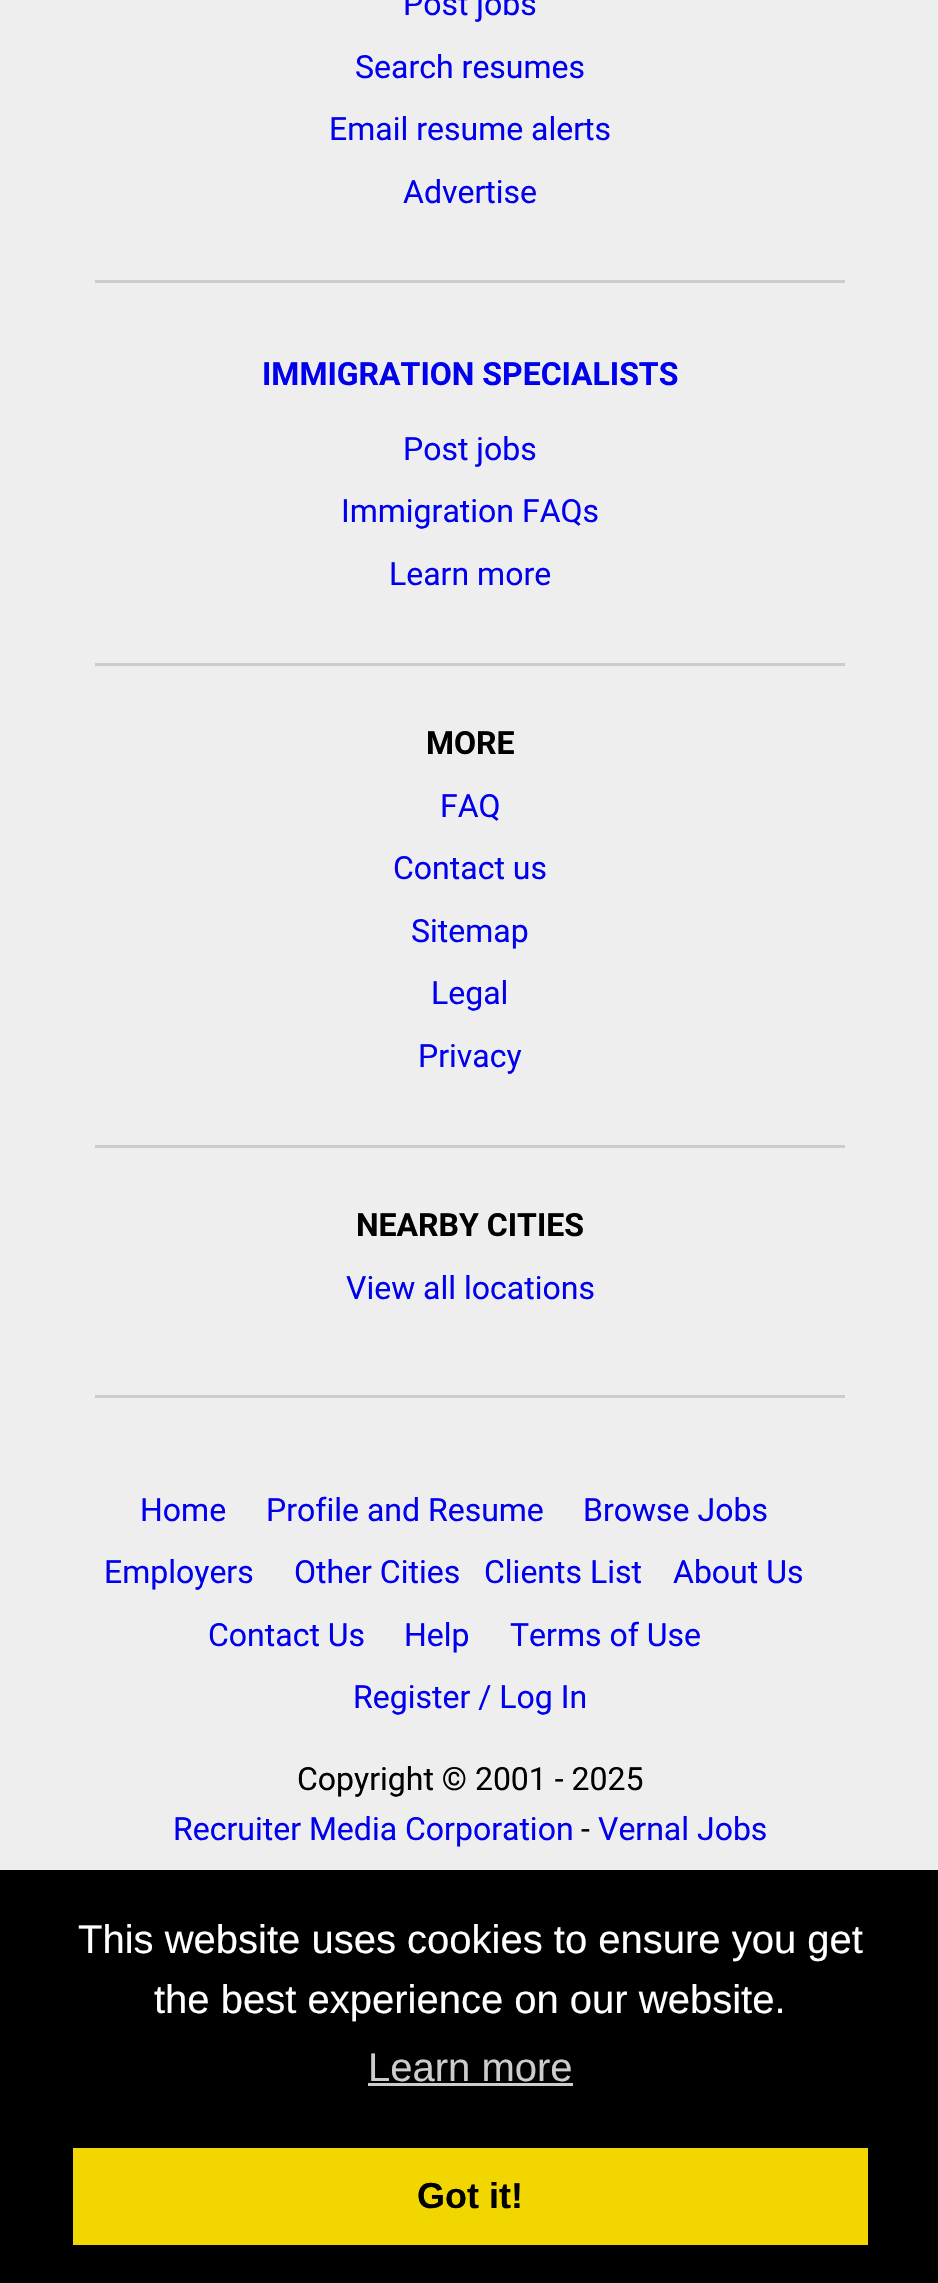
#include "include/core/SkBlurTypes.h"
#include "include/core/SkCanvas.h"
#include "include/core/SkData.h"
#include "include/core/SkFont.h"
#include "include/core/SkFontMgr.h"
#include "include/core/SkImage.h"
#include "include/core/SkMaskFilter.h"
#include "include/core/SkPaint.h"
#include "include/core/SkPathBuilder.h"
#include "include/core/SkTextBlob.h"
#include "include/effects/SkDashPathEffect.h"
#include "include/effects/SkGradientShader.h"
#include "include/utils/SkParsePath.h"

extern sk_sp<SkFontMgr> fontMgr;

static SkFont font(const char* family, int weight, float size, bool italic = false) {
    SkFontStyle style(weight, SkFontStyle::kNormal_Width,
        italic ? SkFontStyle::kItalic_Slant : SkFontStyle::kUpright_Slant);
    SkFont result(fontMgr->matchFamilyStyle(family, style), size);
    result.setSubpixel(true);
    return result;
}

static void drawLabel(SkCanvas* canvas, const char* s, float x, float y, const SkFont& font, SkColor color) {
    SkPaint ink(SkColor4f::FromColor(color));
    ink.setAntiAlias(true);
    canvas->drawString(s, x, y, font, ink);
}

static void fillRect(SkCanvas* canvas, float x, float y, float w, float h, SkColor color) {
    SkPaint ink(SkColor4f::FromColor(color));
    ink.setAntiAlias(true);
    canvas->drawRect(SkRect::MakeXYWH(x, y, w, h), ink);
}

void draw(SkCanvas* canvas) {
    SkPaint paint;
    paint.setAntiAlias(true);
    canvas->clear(0xFFEEEEEE);
    fillRect(canvas, 95, 280, 750, 3, 0xFFCCCCCC);
    SkFont font1 = font("Roboto", 400, 32);
    drawLabel(canvas, "Post jobs", 403, 15, font1, 0xFF0000EE);
    drawLabel(canvas, "Search resumes", 355, 78, font1, 0xFF0000EE);
    drawLabel(canvas, "Email resume alerts", 329, 140, font1, 0xFF0000EE);
    drawLabel(canvas, "Advertise", 403, 203, font1, 0xFF0000EE);
    fillRect(canvas, 95, 663, 750, 3, 0xFFCCCCCC);
    SkFont font2 = font("Roboto", 700, 32);
    drawLabel(canvas, "IMMIGRATION SPECIALISTS", 262, 385, font2, 0xFF0000EE);
    drawLabel(canvas, "Post jobs", 403, 460, font1, 0xFF0000EE);
    drawLabel(canvas, "Immigration FAQs", 341, 522, font1, 0xFF0000EE);
    drawLabel(canvas, "Learn more", 389, 585, font1, 0xFF0000EE);
    fillRect(canvas, 95, 1145, 750, 3, 0xFFCCCCCC);
    drawLabel(canvas, "MORE", 426, 754, font2, 0xFF000000);
    drawLabel(canvas, "FAQ", 440, 817, font1, 0xFF0000EE);
    drawLabel(canvas, "Contact us", 393, 879, font1, 0xFF0000EE);
    drawLabel(canvas, "Sitemap", 411, 942, font1, 0xFF0000EE);
    drawLabel(canvas, "Legal", 431, 1004, font1, 0xFF0000EE);
    drawLabel(canvas, "Privacy", 418, 1067, font1, 0xFF0000EE);
    fillRect(canvas, 95, 1395, 750, 3, 0xFFCCCCCC);
    drawLabel(canvas, "NEARBY CITIES", 356, 1236, font2, 0xFF000000);
    drawLabel(canvas, "View all locations", 346, 1299, font1, 0xFF0000EE);
    drawLabel(canvas, "Home", 140, 1521, font1, 0xFF0000EE);
    drawLabel(canvas, "Profile and Resume", 266, 1521, font1, 0xFF0000EE);
    drawLabel(canvas, "Browse Jobs", 583, 1521, font1, 0xFF0000EE);
    drawLabel(canvas, "Employers", 104, 1583, font1, 0xFF0000EE);
    drawLabel(canvas, "Other Cities", 294, 1583, font1, 0xFF0000EE);
    drawLabel(canvas, "Clients List", 484, 1583, font1, 0xFF0000EE);
    drawLabel(canvas, "About Us", 673, 1583, font1, 0xFF0000EE);
    drawLabel(canvas, "Contact Us", 208, 1646, font1, 0xFF0000EE);
    drawLabel(canvas, "Help", 404, 1646, font1, 0xFF0000EE);
    drawLabel(canvas, "Terms of Use", 510, 1646, font1, 0xFF0000EE);
    drawLabel(canvas, "Register / Log In", 353, 1708, font1, 0xFF0000EE);
    drawLabel(canvas, "Copyright © 2001 - 2025", 297, 1790, font1, 0xFF000000);
    drawLabel(canvas, "Recruiter Media Corporation", 173, 1840, font1, 0xFF0000EE);
    drawLabel(canvas, "-", 581, 1840, font1, 0xFF000000);
    drawLabel(canvas, "Vernal Jobs", 598, 1840, font1, 0xFF0000EE);
    fillRect(canvas, 0, 1870, 938, 413, 0xFF000000);
    SkFont font3 = font("Liberation Sans", 400, 40);
    drawLabel(canvas, "This website uses cookies to ensure you get", 78, 1953, font3, 0xFFFFFFFF);
    drawLabel(canvas, "the best experience on our website.", 154, 2013, font3, 0xFFFFFFFF);
    drawLabel(canvas, "Learn more", 368, 2081, font3, 0xFFCCCCCC);
    fillRect(canvas, 368, 2083, 205, 3, 0xFFCCCCCC);
    fillRect(canvas, 73, 2148, 795, 97, 0xFFF1D600);
    SkFont font4 = font("Liberation Sans", 700, 36);
    drawLabel(canvas, "Got it!", 417, 2208, font4, 0xFF000000);
}
